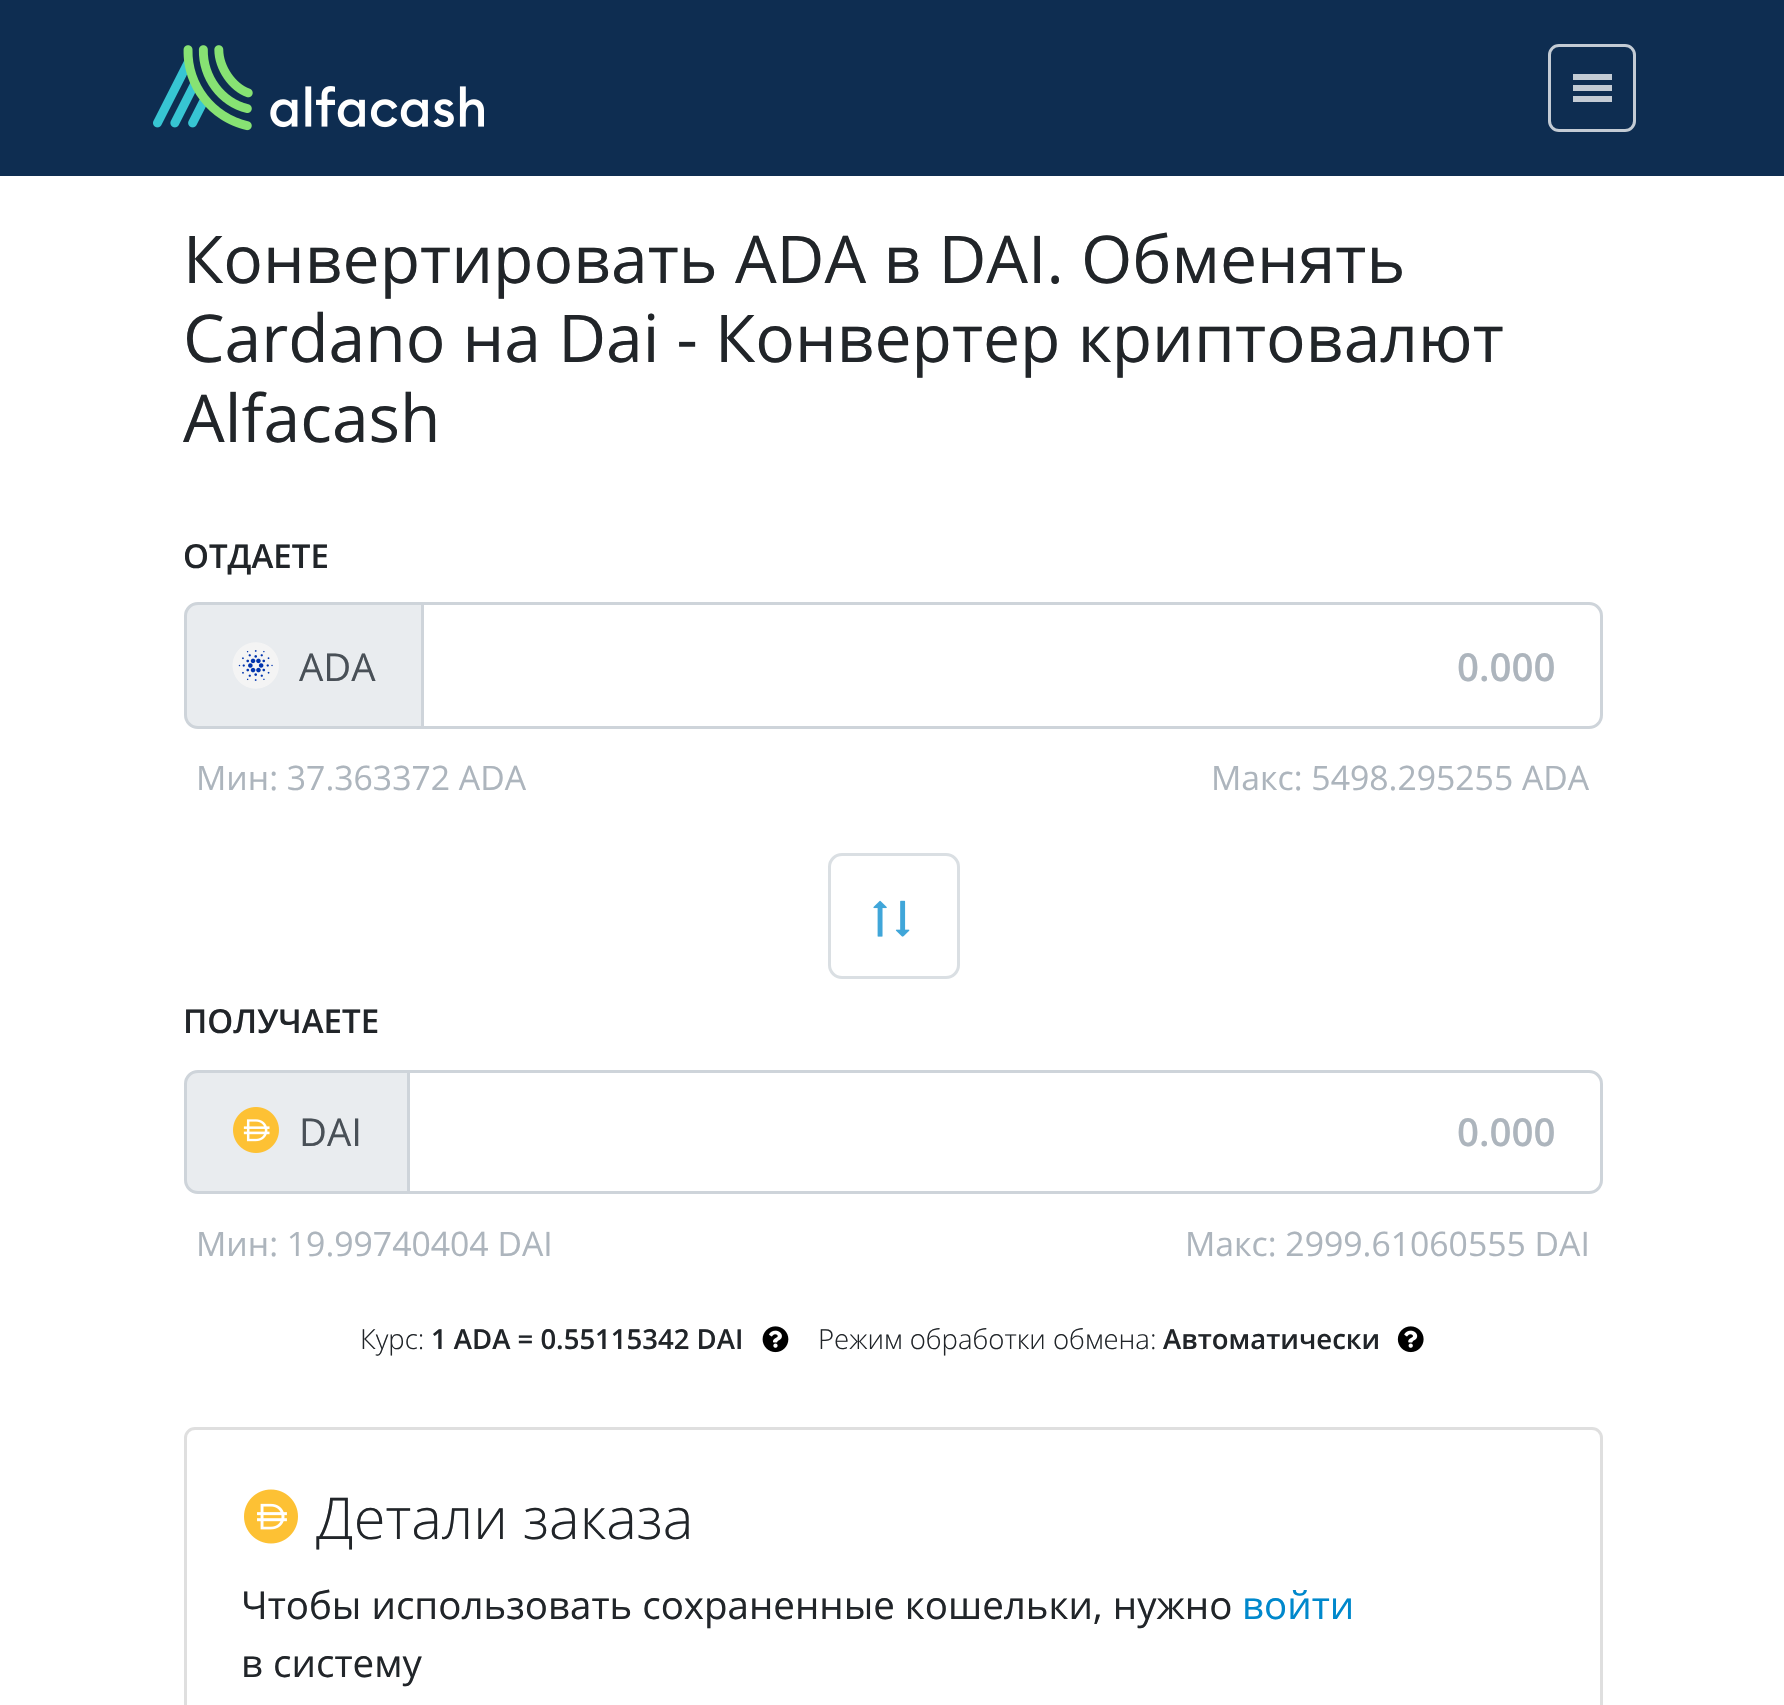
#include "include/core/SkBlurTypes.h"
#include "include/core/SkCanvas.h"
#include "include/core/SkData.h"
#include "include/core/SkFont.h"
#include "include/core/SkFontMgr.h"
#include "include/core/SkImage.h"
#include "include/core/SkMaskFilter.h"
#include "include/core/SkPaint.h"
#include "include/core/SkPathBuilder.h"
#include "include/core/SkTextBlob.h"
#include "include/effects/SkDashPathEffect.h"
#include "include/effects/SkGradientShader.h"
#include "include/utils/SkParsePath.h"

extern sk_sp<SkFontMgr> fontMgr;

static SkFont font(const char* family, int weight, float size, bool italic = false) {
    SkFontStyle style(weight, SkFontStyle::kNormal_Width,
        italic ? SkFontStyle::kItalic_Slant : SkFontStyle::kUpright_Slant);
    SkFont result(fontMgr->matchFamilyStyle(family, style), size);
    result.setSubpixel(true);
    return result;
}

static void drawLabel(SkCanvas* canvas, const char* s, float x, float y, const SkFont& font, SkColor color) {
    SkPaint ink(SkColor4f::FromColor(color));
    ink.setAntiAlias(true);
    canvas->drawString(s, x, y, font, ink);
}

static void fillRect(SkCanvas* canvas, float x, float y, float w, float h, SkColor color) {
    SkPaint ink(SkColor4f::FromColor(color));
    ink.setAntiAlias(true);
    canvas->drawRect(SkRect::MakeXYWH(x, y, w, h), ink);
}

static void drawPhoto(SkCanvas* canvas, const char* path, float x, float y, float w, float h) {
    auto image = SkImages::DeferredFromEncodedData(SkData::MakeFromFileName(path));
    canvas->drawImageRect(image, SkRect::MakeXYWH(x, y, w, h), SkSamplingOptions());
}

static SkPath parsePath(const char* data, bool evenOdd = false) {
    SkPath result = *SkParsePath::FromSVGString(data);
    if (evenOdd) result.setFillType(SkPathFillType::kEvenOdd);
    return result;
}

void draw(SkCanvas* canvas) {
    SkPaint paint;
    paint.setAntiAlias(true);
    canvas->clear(0xFFFFFFFF);
    fillRect(canvas, 0, 0, 1784, 176, 0xFF0E2D51);
    drawPhoto(canvas, "assets/img1.png", 153, 45, 331, 86);
    paint.setStroke(true);
    paint.setStrokeWidth(3);
    paint.setColor(0xFFC3CBD4);
    canvas->drawRoundRect(SkRect::MakeXYWH(1549.5f, 45.5f, 85, 85), 9.5f, 9.5f, paint);
    fillRect(canvas, 1573, 85, 39, 6, 0xFFC3CBD4);
    fillRect(canvas, 1573, 74, 39, 6, 0xFFC3CBD4);
    fillRect(canvas, 1573, 96, 39, 6, 0xFFC3CBD4);
    SkFont font1 = font("Open Sans", 400, 66);
    drawLabel(canvas, "Конвертировать ADA в DAI. Обменять", 183, 283, font1, 0xFF212529);
    drawLabel(canvas, "Cardano на Dai - Конвертер криптовалют", 183, 362, font1, 0xFF212529);
    drawLabel(canvas, "Alfacash", 183, 442, font1, 0xFF212529);
    SkFont font2 = font("Open Sans", 600, 33);
    drawLabel(canvas, "ОТДАЕТЕ", 183, 568, font2, 0xFF212529);
    paint.setStroke(false);
    paint.setColor(0xFFE9ECEF);
    canvas->drawPath(parsePath("M198 603.5H422.5V727.5H198C191 727.5 185.5 722 185.5 715V616C185.5 609 191 603.5 198 603.5Z"), paint);
    paint.setStroke(true);
    paint.setColor(0xFFCED4DA);
    canvas->drawPath(parsePath("M198 603.5H422.5V727.5H198C191 727.5 185.5 722 185.5 715V616C185.5 609 191 603.5 198 603.5Z"), paint);
    drawPhoto(canvas, "assets/img2.png", 232, 642, 47, 47);
    SkFont font3 = font("Open Sans", 400, 38.5f);
    drawLabel(canvas, "ADA", 299, 681, font3, 0xFF495057);
    canvas->drawPath(parsePath("M422.5 603.5H1589C1596 603.5 1601.5 609 1601.5 616V715C1601.5 722 1596 727.5 1589 727.5H422.5Z"), paint);
    SkFont font4 = font("Open Sans", 600, 38.5f);
    drawLabel(canvas, "0.000", 1457, 681, font4, 0xFFADB5BD);
    SkFont font5 = font("Open Sans", 400, 33.75f);
    drawLabel(canvas, "Мин: 37.363372 ADA", 196, 790, font5, 0xFFADB5BD);
    drawLabel(canvas, "Макс: 5498.295255 ADA", 1211, 790, font5, 0xFFADB5BD);
    paint.setColor(0xFFDADFE3);
    canvas->drawRoundRect(SkRect::MakeXYWH(829.5f, 854.5f, 129, 123), 12.5f, 12.5f, paint);
    drawPhoto(canvas, "assets/img3.png", 873, 900, 37, 37);
    drawLabel(canvas, "ПОЛУЧАЕТЕ", 183, 1033, font2, 0xFF212529);
    paint.setStroke(false);
    paint.setColor(0xFFE9ECEF);
    canvas->drawPath(parsePath("M198 1071.5H408.5V1192.5H198C191 1192.5 185.5 1187 185.5 1180V1084C185.5 1077 191 1071.5 198 1071.5Z"), paint);
    paint.setStroke(true);
    paint.setColor(0xFFCED4DA);
    canvas->drawPath(parsePath("M198 1071.5H408.5V1192.5H198C191 1192.5 185.5 1187 185.5 1180V1084C185.5 1077 191 1071.5 198 1071.5Z"), paint);
    drawPhoto(canvas, "assets/img4.png", 233, 1107, 46, 46);
    drawLabel(canvas, "DAI", 299, 1146, font3, 0xFF495057);
    canvas->drawPath(parsePath("M408.5 1071.5H1589C1596 1071.5 1601.5 1077 1601.5 1084V1180C1601.5 1187 1596 1192.5 1589 1192.5H408.5Z"), paint);
    drawLabel(canvas, "0.000", 1457, 1146, font4, 0xFFADB5BD);
    drawLabel(canvas, "Мин: 19.99740404 DAI", 196, 1256, font5, 0xFFADB5BD);
    drawLabel(canvas, "Макс: 2999.61060555 DAI", 1185, 1256, font5, 0xFFADB5BD);
    SkFont font6 = font("Open Sans", 300, 27.5f);
    drawLabel(canvas, "Курс:", 360, 1349, font6, 0xFF212529);
    SkFont font7 = font("Open Sans", 600, 27.5f);
    drawLabel(canvas, "1 ADA = 0.55115342 DAI", 431, 1349, font7, 0xFF212529);
    drawPhoto(canvas, "assets/img5.png", 762, 1326, 27, 27);
    drawLabel(canvas, "Режим обработки обмена:", 818, 1349, font6, 0xFF212529);
    drawLabel(canvas, "Автоматически", 1163, 1349, font7, 0xFF212529);
    drawPhoto(canvas, "assets/img6.png", 1397, 1326, 27, 27);
    paint.setColor(0xFFDFDFDF);
    canvas->drawRoundRect(SkRect::MakeXYWH(185.5f, 1428.5f, 1416, 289), 9.5f, 9.5f, paint);
    drawPhoto(canvas, "assets/img7.png", 244, 1489, 54, 55);
    SkFont font8 = font("Open Sans", 300, 57.75f);
    drawLabel(canvas, "Детали заказа", 316, 1539, font8, 0xFF212529);
    drawLabel(canvas, "Чтобы использовать сохраненные кошельки, нужно", 241, 1619, font3, 0xFF212529);
    drawLabel(canvas, "войти", 1242, 1619, font3, 0xFF0088CC);
    drawLabel(canvas, "в систему", 241, 1677, font3, 0xFF212529);
}
